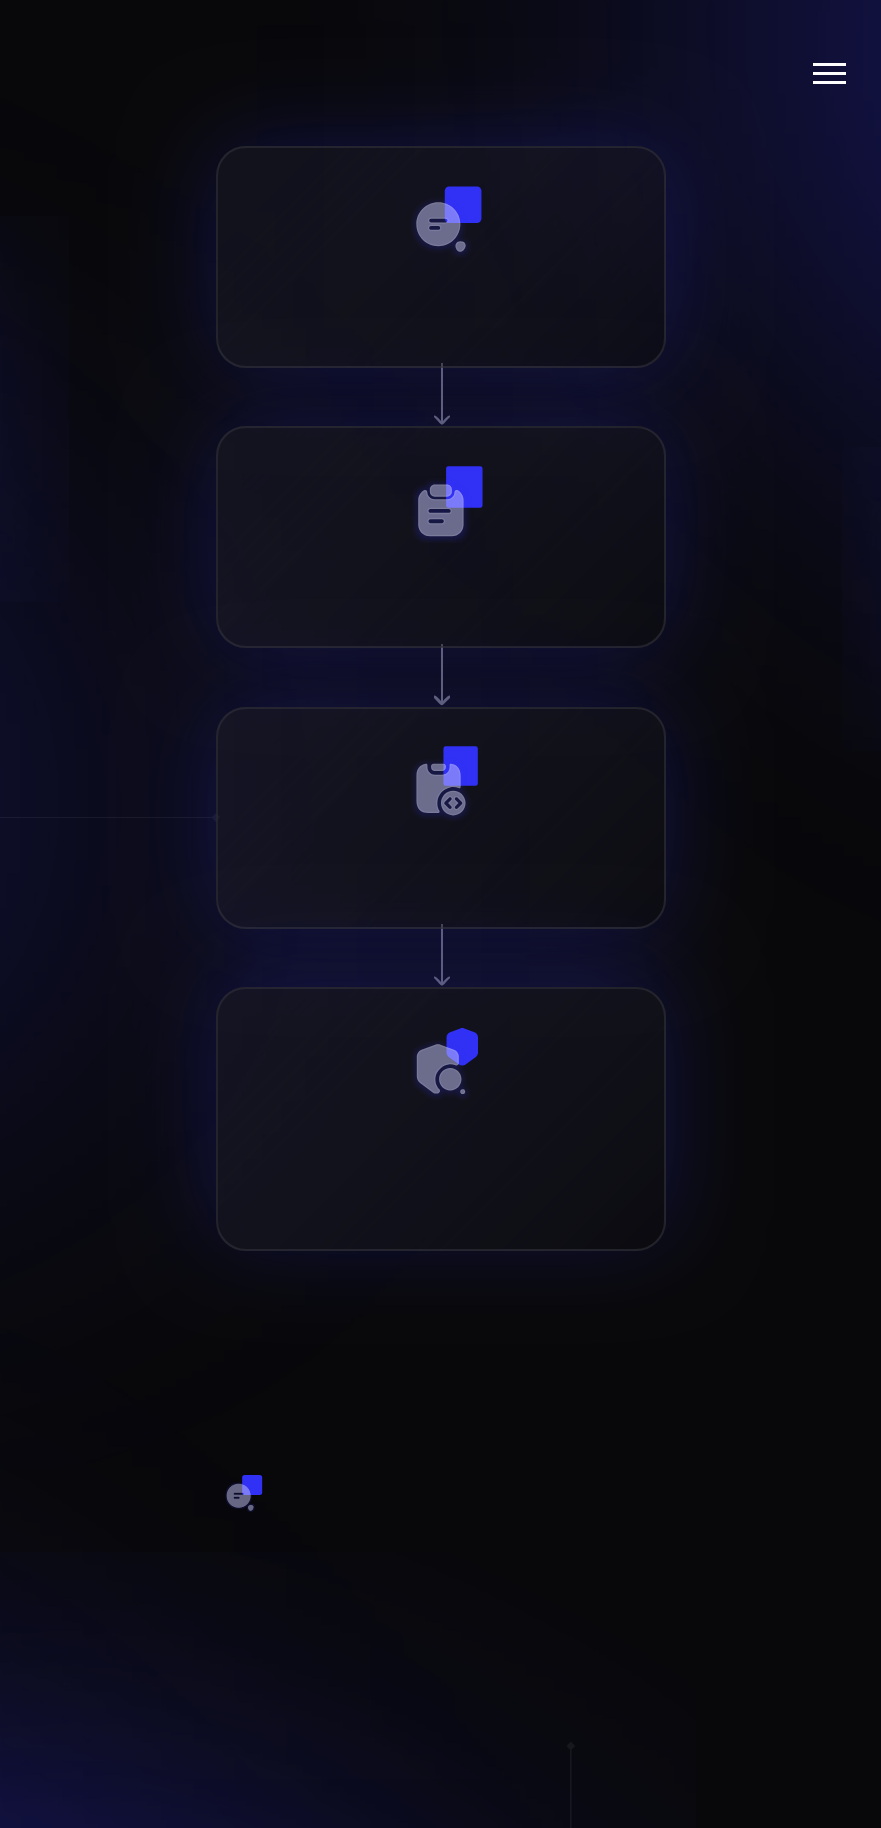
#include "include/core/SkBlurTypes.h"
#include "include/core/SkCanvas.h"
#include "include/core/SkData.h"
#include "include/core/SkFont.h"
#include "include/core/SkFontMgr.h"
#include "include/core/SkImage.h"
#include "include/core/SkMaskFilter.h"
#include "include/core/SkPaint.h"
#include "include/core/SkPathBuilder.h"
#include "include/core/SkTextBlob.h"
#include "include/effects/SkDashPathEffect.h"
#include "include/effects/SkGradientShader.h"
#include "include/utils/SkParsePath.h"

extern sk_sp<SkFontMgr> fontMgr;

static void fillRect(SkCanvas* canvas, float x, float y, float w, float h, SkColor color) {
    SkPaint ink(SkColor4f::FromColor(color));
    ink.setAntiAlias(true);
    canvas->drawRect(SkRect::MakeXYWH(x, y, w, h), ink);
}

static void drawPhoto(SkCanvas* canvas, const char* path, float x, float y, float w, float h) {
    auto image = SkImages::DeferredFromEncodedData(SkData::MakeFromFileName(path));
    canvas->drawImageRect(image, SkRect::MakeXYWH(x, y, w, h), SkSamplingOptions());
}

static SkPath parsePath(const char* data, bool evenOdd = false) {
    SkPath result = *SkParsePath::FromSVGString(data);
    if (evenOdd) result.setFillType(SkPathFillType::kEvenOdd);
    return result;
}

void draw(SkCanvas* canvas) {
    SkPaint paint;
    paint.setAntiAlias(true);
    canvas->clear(0xFFFFFFFF);
    drawPhoto(canvas, "assets/img1.png", 0, 0, 881, 1828);
    paint.setColor(0xFF63636D);
    canvas->drawPath(parsePath("M450 417C440 427 444 427 434 417V416C435 414 440 420 441 421V363H443V421C444 420 449 414 450 416Z", true), paint);
    canvas->save();
    canvas->clipPath(parsePath("M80 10H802V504H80ZM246 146H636C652.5 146 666 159.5 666 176V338C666 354.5 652.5 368 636 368H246C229.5 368 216 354.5 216 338V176C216 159.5 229.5 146 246 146Z", true), true);
    paint.setColor(0x3D3131F5);
    paint.setMaskFilter(SkMaskFilter::MakeBlur(kNormal_SkBlurStyle, 45));
    canvas->drawRoundRect(SkRect::MakeXYWH(216, 146, 450, 222), 30, 30, paint);
    paint.setMaskFilter(nullptr);
    canvas->restore();
    canvas->save();
    canvas->clipPath(parsePath("M246 146H636C652.5 146 666 159.5 666 176V338C666 354.5 652.5 368 636 368H246C229.5 368 216 354.5 216 338V176C216 159.5 229.5 146 246 146Z"), true);
    {
        const SkColor colors[] = {0x870C0C14, 0x3D313152};
        const float stops[] = {0, 1};
        const SkPoint ends[] = {{608, 204}, {274, -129}};
        paint.setShader(SkGradientShader::MakeLinear(ends, colors, stops, 2, SkTileMode::kClamp));
        paint.setAlpha(255);
    }
    canvas->drawRect(SkRect::MakeXYWH(239, 146, 405, 1), paint);
    {
        const SkColor colors[] = {0xE00A0A10, 0x66202036};
        const float stops[] = {0, 1};
        const SkPoint ends[] = {{161, 423}, {-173, 90}};
        paint.setShader(SkGradientShader::MakeLinear(ends, colors, stops, 2, SkTileMode::kClamp));
        paint.setAlpha(255);
    }
    canvas->drawRect(SkRect::MakeXYWH(216, 165, 2, 184), paint);
    {
        const SkColor colors[] = {0x870C0C14, 0x3D313152};
        const float stops[] = {0, 1};
        const SkPoint ends[] = {{608, 423}, {274, 90}};
        paint.setShader(SkGradientShader::MakeLinear(ends, colors, stops, 2, SkTileMode::kClamp));
        paint.setAlpha(255);
    }
    canvas->drawRect(SkRect::MakeXYWH(218, 147, 447, 219), paint);
    {
        const SkColor colors[] = {0x870C0C14, 0x3D313152};
        const float stops[] = {0, 1};
        const SkPoint ends[] = {{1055, 423}, {721, 90}};
        paint.setShader(SkGradientShader::MakeLinear(ends, colors, stops, 2, SkTileMode::kClamp));
        paint.setAlpha(255);
    }
    canvas->drawRect(SkRect::MakeXYWH(665, 169, 1, 176), paint);
    {
        const SkColor colors[] = {0x870C0C14, 0x3D313152};
        const float stops[] = {0, 1};
        const SkPoint ends[] = {{608, 642}, {274, 309}};
        paint.setShader(SkGradientShader::MakeLinear(ends, colors, stops, 2, SkTileMode::kClamp));
        paint.setAlpha(255);
    }
    canvas->drawRect(SkRect::MakeXYWH(235, 366, 412, 2), paint);
    canvas->restore();
    paint.setStroke(true);
    paint.setStrokeWidth(2);
    paint.setShader(nullptr);
    paint.setColor(0x9931313A);
    canvas->drawRoundRect(SkRect::MakeXYWH(217, 147, 448, 220), 29, 29, paint);
    drawPhoto(canvas, "assets/img2.png", 0, 216, 69, 386);
    drawPhoto(canvas, "assets/img3.png", 411, 186, 71, 72);
    paint.setStroke(false);
    paint.setColor(0xFF63636D);
    canvas->drawPath(parsePath("M450 698C440 707 444 708 434 698V696C435 694 440 700 441 701V644H443V701C444 700 449 694 450 696Z", true), paint);
    canvas->save();
    canvas->clipPath(parsePath("M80 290H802V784H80ZM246 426H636C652.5 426 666 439.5 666 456V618C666 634.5 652.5 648 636 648H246C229.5 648 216 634.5 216 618V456C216 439.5 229.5 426 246 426Z", true), true);
    paint.setColor(0x3D3131F5);
    paint.setMaskFilter(SkMaskFilter::MakeBlur(kNormal_SkBlurStyle, 45));
    canvas->drawRoundRect(SkRect::MakeXYWH(216, 426, 450, 222), 30, 30, paint);
    paint.setMaskFilter(nullptr);
    canvas->restore();
    canvas->save();
    canvas->clipPath(parsePath("M246 426H636C652.5 426 666 439.5 666 456V618C666 634.5 652.5 648 636 648H246C229.5 648 216 634.5 216 618V456C216 439.5 229.5 426 246 426Z"), true);
    {
        const SkColor colors[] = {0x870C0C14, 0x3D313152};
        const float stops[] = {0, 1};
        const SkPoint ends[] = {{608, 485}, {274, 152}};
        paint.setShader(SkGradientShader::MakeLinear(ends, colors, stops, 2, SkTileMode::kClamp));
        paint.setAlpha(255);
    }
    canvas->drawRect(SkRect::MakeXYWH(235, 426, 412, 2), paint);
    {
        const SkColor colors[] = {0x870C0C14, 0x3D313152};
        const float stops[] = {0, 1};
        const SkPoint ends[] = {{161, 704}, {-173, 371}};
        paint.setShader(SkGradientShader::MakeLinear(ends, colors, stops, 2, SkTileMode::kClamp));
        paint.setAlpha(255);
    }
    canvas->drawRect(SkRect::MakeXYWH(216, 445, 2, 184), paint);
    {
        const SkColor colors[] = {0x870C0C14, 0x3D313152};
        const float stops[] = {0, 1};
        const SkPoint ends[] = {{608, 704}, {274, 371}};
        paint.setShader(SkGradientShader::MakeLinear(ends, colors, stops, 2, SkTileMode::kClamp));
        paint.setAlpha(255);
    }
    canvas->drawRect(SkRect::MakeXYWH(218, 428, 447, 219), paint);
    {
        const SkColor colors[] = {0x870C0C14, 0x3D313152};
        const float stops[] = {0, 1};
        const SkPoint ends[] = {{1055, 704}, {721, 371}};
        paint.setShader(SkGradientShader::MakeLinear(ends, colors, stops, 2, SkTileMode::kClamp));
        paint.setAlpha(255);
    }
    canvas->drawRect(SkRect::MakeXYWH(665, 449, 1, 176), paint);
    {
        const SkColor colors[] = {0x870C0C14, 0x3D313152};
        const float stops[] = {0, 1};
        const SkPoint ends[] = {{608, 923}, {274, 590}};
        paint.setShader(SkGradientShader::MakeLinear(ends, colors, stops, 2, SkTileMode::kClamp));
        paint.setAlpha(255);
    }
    canvas->drawRect(SkRect::MakeXYWH(239, 647, 404, 1), paint);
    canvas->restore();
    paint.setStroke(true);
    paint.setShader(nullptr);
    paint.setColor(0x9931313A);
    canvas->drawRoundRect(SkRect::MakeXYWH(217, 427, 448, 220), 29, 29, paint);
    drawPhoto(canvas, "assets/img4.png", 412, 466, 71, 77);
    drawPhoto(canvas, "assets/img5.png", 842, 447, 39, 304);
    paint.setStroke(false);
    paint.setColor(0x0FF5F5FF);
    canvas->drawPath(parsePath("M-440-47L-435-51L-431-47L-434-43V429C-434 445-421 458-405 458H-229C-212 458-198 472-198 489V787C-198 803-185 817-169 817H212L216 813L220 817L216 822L212 818H-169C-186 818-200 804-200 787V489C-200 473-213 460-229 460H-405C-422 460-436 446-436 429V-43Z", true), paint);
    paint.setColor(0xFF63636D);
    canvas->drawPath(parsePath("M450 978C440 988 444 988 434 978V977C435 975 440 981 441 982V924H443V982C444 981 449 975 450 977Z", true), paint);
    canvas->save();
    canvas->clipPath(parsePath("M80 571H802V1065H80ZM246 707H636C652.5 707 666 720.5 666 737V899C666 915.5 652.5 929 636 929H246C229.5 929 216 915.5 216 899V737C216 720.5 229.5 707 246 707Z", true), true);
    paint.setColor(0x3D3131F5);
    paint.setMaskFilter(SkMaskFilter::MakeBlur(kNormal_SkBlurStyle, 45));
    canvas->drawRoundRect(SkRect::MakeXYWH(216, 707, 450, 222), 30, 30, paint);
    paint.setMaskFilter(nullptr);
    canvas->restore();
    canvas->save();
    canvas->clipPath(parsePath("M246 707H636C652.5 707 666 720.5 666 737V899C666 915.5 652.5 929 636 929H246C229.5 929 216 915.5 216 899V737C216 720.5 229.5 707 246 707Z"), true);
    {
        const SkColor colors[] = {0x870C0C14, 0x3D313152};
        const float stops[] = {0, 1};
        const SkPoint ends[] = {{608, 765}, {274, 432}};
        paint.setShader(SkGradientShader::MakeLinear(ends, colors, stops, 2, SkTileMode::kClamp));
        paint.setAlpha(255);
    }
    canvas->drawRect(SkRect::MakeXYWH(239, 707, 405, 1), paint);
    {
        const SkColor colors[] = {0x870C0C14, 0x3D313152};
        const float stops[] = {0, 1};
        const SkPoint ends[] = {{161, 984}, {-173, 651}};
        paint.setShader(SkGradientShader::MakeLinear(ends, colors, stops, 2, SkTileMode::kClamp));
        paint.setAlpha(255);
    }
    canvas->drawRect(SkRect::MakeXYWH(216, 726, 2, 184), paint);
    {
        const SkColor colors[] = {0x870C0C14, 0x3D313152};
        const float stops[] = {0, 1};
        const SkPoint ends[] = {{608, 984}, {274, 651}};
        paint.setShader(SkGradientShader::MakeLinear(ends, colors, stops, 2, SkTileMode::kClamp));
        paint.setAlpha(255);
    }
    canvas->drawRect(SkRect::MakeXYWH(218, 708, 447, 219), paint);
    {
        const SkColor colors[] = {0xE00A0A10, 0x66202035};
        const float stops[] = {0, 1};
        const SkPoint ends[] = {{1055, 984}, {721, 651}};
        paint.setShader(SkGradientShader::MakeLinear(ends, colors, stops, 2, SkTileMode::kClamp));
        paint.setAlpha(255);
    }
    canvas->drawRect(SkRect::MakeXYWH(665, 730, 1, 177), paint);
    {
        const SkColor colors[] = {0x870C0C14, 0x3D313152};
        const float stops[] = {0, 1};
        const SkPoint ends[] = {{608, 1203}, {274, 870}};
        paint.setShader(SkGradientShader::MakeLinear(ends, colors, stops, 2, SkTileMode::kClamp));
        paint.setAlpha(255);
    }
    canvas->drawRect(SkRect::MakeXYWH(235, 927, 412, 2), paint);
    canvas->restore();
    paint.setStroke(true);
    paint.setShader(nullptr);
    paint.setColor(0x9931313A);
    canvas->drawRoundRect(SkRect::MakeXYWH(217, 708, 448, 220), 29, 29, paint);
    drawPhoto(canvas, "assets/img6.png", 411, 746, 67, 75);
    canvas->save();
    canvas->clipPath(parsePath("M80 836H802V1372H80ZM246 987H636C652.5 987 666 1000.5 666 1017V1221C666 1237.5 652.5 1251 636 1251H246C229.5 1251 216 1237.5 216 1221V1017C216 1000.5 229.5 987 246 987Z", true), true);
    paint.setStroke(false);
    paint.setColor(0x3D3131F5);
    paint.setMaskFilter(SkMaskFilter::MakeBlur(kNormal_SkBlurStyle, 45));
    canvas->drawRoundRect(SkRect::MakeXYWH(216, 972, 450, 264), 30, 30, paint);
    paint.setMaskFilter(nullptr);
    canvas->restore();
    canvas->save();
    canvas->clipPath(parsePath("M246 987H636C652.5 987 666 1000.5 666 1017V1221C666 1237.5 652.5 1251 636 1251H246C229.5 1251 216 1237.5 216 1221V1017C216 1000.5 229.5 987 246 987Z"), true);
    {
        const SkColor colors[] = {0x870C0C14, 0x3D313152};
        const float stops[] = {0, 1};
        const SkPoint ends[] = {{618, 1035}, {264, 681}};
        paint.setShader(SkGradientShader::MakeLinear(ends, colors, stops, 2, SkTileMode::kClamp));
        paint.setAlpha(255);
    }
    canvas->drawRect(SkRect::MakeXYWH(235, 987, 412, 2), paint);
    {
        const SkColor colors[] = {0x870C0C14, 0x3D313152};
        const float stops[] = {0, 1};
        const SkPoint ends[] = {{171, 1296}, {-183, 942}};
        paint.setShader(SkGradientShader::MakeLinear(ends, colors, stops, 2, SkTileMode::kClamp));
        paint.setAlpha(255);
    }
    canvas->drawRect(SkRect::MakeXYWH(216, 1006, 2, 226), paint);
    {
        const SkColor colors[] = {0x870C0C14, 0x3D313152};
        const float stops[] = {0, 1};
        const SkPoint ends[] = {{618, 1296}, {264, 942}};
        paint.setShader(SkGradientShader::MakeLinear(ends, colors, stops, 2, SkTileMode::kClamp));
        paint.setAlpha(255);
    }
    canvas->drawRect(SkRect::MakeXYWH(218, 989, 447, 261), paint);
    {
        const SkColor colors[] = {0xE00A0A10, 0x66212135};
        const float stops[] = {0, 1};
        const SkPoint ends[] = {{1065, 1296}, {711, 942}};
        paint.setShader(SkGradientShader::MakeLinear(ends, colors, stops, 2, SkTileMode::kClamp));
        paint.setAlpha(255);
    }
    canvas->drawRect(SkRect::MakeXYWH(665, 1010, 1, 219), paint);
    {
        const SkColor colors[] = {0xE00A0A10, 0x66212135};
        const float stops[] = {0, 1};
        const SkPoint ends[] = {{618, 1557}, {264, 1203}};
        paint.setShader(SkGradientShader::MakeLinear(ends, colors, stops, 2, SkTileMode::kClamp));
        paint.setAlpha(255);
    }
    canvas->drawRect(SkRect::MakeXYWH(239, 1250, 405, 1), paint);
    canvas->restore();
    paint.setStroke(true);
    paint.setShader(nullptr);
    paint.setColor(0x9931313A);
    canvas->drawRoundRect(SkRect::MakeXYWH(217, 988, 448, 262), 29, 29, paint);
    drawPhoto(canvas, "assets/img7.png", 412, 1028, 66, 72);
    fillRect(canvas, 813, 63, 33, 3, 0xFFFFFFFF);
    fillRect(canvas, 813, 72, 33, 3, 0xFFFFFFFF);
    fillRect(canvas, 813, 81, 33, 3, 0xFFFFFFFF);
    drawPhoto(canvas, "assets/img8.png", 225, 1475, 38, 37);
    drawPhoto(canvas, "assets/img9.png", 0, 1552, 696, 276);
    drawPhoto(canvas, "assets/img10.png", 567, 1742, 8, 86);
}
